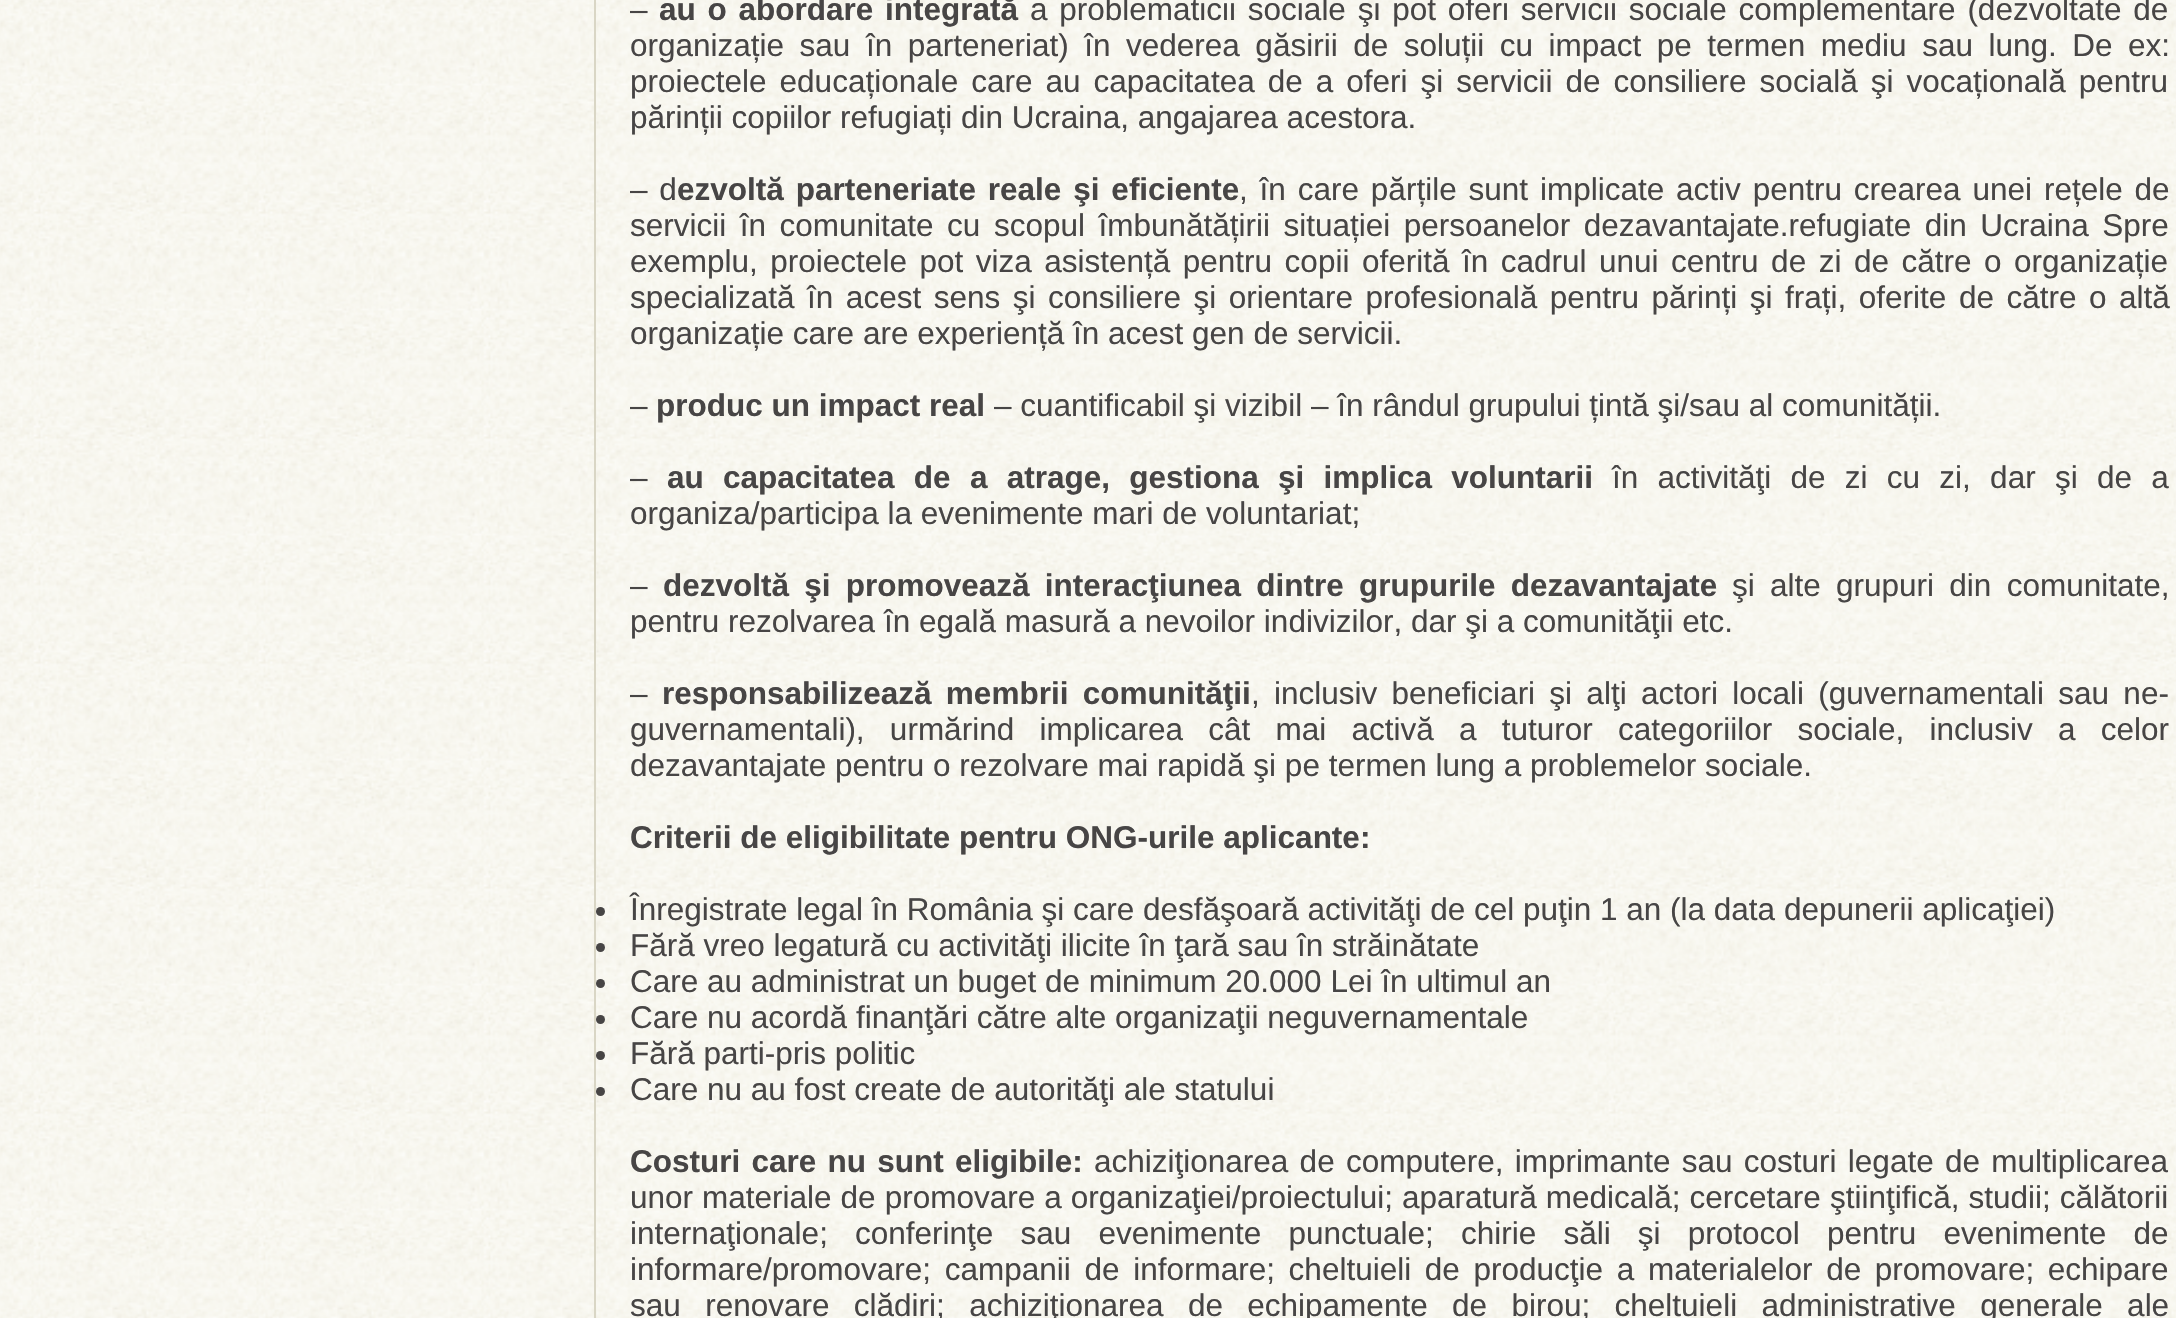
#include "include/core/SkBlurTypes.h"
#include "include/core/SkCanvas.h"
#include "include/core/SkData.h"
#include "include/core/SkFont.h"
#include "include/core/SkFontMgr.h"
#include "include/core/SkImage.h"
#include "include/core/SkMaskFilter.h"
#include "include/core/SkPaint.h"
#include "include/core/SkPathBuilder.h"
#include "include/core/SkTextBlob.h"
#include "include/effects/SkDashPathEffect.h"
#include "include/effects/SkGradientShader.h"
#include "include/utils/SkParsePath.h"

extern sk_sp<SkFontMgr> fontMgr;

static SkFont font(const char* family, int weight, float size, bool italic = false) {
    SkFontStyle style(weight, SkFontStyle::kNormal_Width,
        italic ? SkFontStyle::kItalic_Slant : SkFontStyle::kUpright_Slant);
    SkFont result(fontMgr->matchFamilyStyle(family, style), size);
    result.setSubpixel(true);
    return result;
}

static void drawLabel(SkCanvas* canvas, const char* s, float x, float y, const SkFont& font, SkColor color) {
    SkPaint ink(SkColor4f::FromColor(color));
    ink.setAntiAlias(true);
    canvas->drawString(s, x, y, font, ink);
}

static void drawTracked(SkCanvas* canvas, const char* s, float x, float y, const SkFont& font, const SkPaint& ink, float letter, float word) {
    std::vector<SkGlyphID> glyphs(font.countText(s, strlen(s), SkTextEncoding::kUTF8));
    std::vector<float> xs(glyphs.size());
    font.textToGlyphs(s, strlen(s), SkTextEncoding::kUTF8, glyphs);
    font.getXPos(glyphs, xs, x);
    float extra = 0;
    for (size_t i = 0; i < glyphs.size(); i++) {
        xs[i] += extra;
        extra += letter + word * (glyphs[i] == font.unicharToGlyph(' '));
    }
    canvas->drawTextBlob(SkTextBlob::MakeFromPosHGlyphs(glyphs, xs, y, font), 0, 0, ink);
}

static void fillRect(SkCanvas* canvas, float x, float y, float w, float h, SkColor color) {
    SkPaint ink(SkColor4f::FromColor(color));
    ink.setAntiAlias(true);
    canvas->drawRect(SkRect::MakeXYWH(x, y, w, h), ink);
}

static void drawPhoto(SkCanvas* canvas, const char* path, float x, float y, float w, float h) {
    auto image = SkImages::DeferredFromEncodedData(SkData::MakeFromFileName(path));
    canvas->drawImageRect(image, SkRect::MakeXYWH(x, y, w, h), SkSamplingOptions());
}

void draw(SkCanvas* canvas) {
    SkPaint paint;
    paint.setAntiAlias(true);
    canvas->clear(0xFFFFFFFF);
    drawPhoto(canvas, "assets/img1.png", 0, 0, 2176, 1318);
    fillRect(canvas, 594, 0, 2, 1318, 0xFFD9D6C5);
    SkFont font1 = font("Liberation Sans", 400, 31.5f);
    drawLabel(canvas, "–", 630, 20, font1, 0xFF474545);
    SkFont font2 = font("Liberation Sans", 700, 31.5f);
    paint.setColor(0xFF474545);
    drawTracked(canvas, "au o abordare integrată", 659, 20, font2, paint, 0, 3);
    drawTracked(canvas, "a problematicii sociale şi pot oferi servicii sociale complementare (dezvoltate de", 1030, 20, font1, paint, 0, 3);
    drawTracked(canvas, "organizație sau în parteneriat) în vederea găsirii de soluții cu impact pe termen mediu sau lung. De ex:", 630, 56, font1, paint, 0, 6.75f);
    drawTracked(canvas, "proiectele educaționale care au capacitatea de a oferi şi servicii de consiliere socială şi vocațională pentru", 630, 92, font1, paint, 0, 4.25f);
    drawLabel(canvas, "părinții copiilor refugiați din Ucraina, angajarea acestora.", 630, 128, font1, 0xFF474545);
    drawTracked(canvas, "– d", 630, 200, font1, paint, 0, 3.1f);
    drawTracked(canvas, "ezvoltă parteneriate reale şi eficiente", 677, 200, font2, paint, 0, 3.1f);
    drawTracked(canvas, ", în care părțile sunt implicate activ pentru crearea unei rețele de", 1239, 200, font1, paint, 0, 3.1f);
    drawTracked(canvas, "servicii în comunitate cu scopul îmbunătățirii situației persoanelor dezavantajate.refugiate din Ucraina Spre", 630, 236, font1, paint, 0, 4.75f);
    drawTracked(canvas, "exemplu, proiectele pot viza asistență pentru copii oferită în cadrul unui centru de zi de către o organizație", 630, 272, font1, paint, 0, 3.75f);
    drawTracked(canvas, "specializată în acest sens şi consiliere şi orientare profesională pentru părinți şi frați, oferite de către o altă", 630, 308, font1, paint, 0, 3.75f);
    drawLabel(canvas, "organizație care are experiență în acest gen de servicii.", 630, 344, font1, 0xFF474545);
    drawLabel(canvas, "–", 630, 416, font1, 0xFF474545);
    drawLabel(canvas, "produc un impact real", 656, 416, font2, 0xFF474545);
    drawLabel(canvas, "– cuantificabil şi vizibil – în rândul grupului țintă şi/sau al comunității.", 994, 416, font1, 0xFF474545);
    drawLabel(canvas, "–", 630, 488, font1, 0xFF474545);
    drawTracked(canvas, "au capacitatea de a atrage, gestiona şi implica voluntarii", 667, 488, font2, paint, 0, 10.5f);
    drawTracked(canvas, "în activităţi de zi cu zi, dar şi de a", 1612, 488, font1, paint, 0, 10.5f);
    drawLabel(canvas, "organiza/participa la evenimente mari de voluntariat;", 630, 524, font1, 0xFF474545);
    drawLabel(canvas, "–", 630, 596, font1, 0xFF474545);
    drawTracked(canvas, "dezvoltă şi promovează interacţiunea dintre grupurile dezavantajate", 663, 596, font2, paint, 0, 6.5f);
    drawTracked(canvas, "şi alte grupuri din comunitate,", 1732, 596, font1, paint, 0, 6.5f);
    drawLabel(canvas, "pentru rezolvarea în egală masură a nevoilor indivizilor, dar şi a comunităţii etc.", 630, 632, font1, 0xFF474545);
    drawLabel(canvas, "–", 630, 704, font1, 0xFF474545);
    drawTracked(canvas, "responsabilizează membrii comunităţii", 662, 704, font2, paint, 0, 5.5f);
    drawTracked(canvas, ", inclusiv beneficiari şi alţi actori locali (guvernamentali sau ne-", 1251, 704, font1, paint, 0, 5.5f);
    drawTracked(canvas, "guvernamentali), urmărind implicarea cât mai activă a tuturor categoriilor sociale, inclusiv a celor", 630, 740, font1, paint, 0, 16.5f);
    drawLabel(canvas, "dezavantajate pentru o rezolvare mai rapidă şi pe termen lung a problemelor sociale.", 630, 776, font1, 0xFF474545);
    drawLabel(canvas, "Criterii de eligibilitate pentru ONG-urile aplicante:", 630, 848, font2, 0xFF474545);
    canvas->drawCircle(600.5f, 911.5f, 4.5f, paint);
    drawLabel(canvas, "Înregistrate legal în România şi care desfăşoară activităţi de cel puţin 1 an (la data depunerii aplicaţiei)", 630, 920, font1, 0xFF474545);
    canvas->drawCircle(600.5f, 947.5f, 4.5f, paint);
    drawLabel(canvas, "Fără vreo legatură cu activităţi ilicite în ţară sau în străinătate", 630, 956, font1, 0xFF474545);
    canvas->drawCircle(600.5f, 983.5f, 4.5f, paint);
    drawLabel(canvas, "Care au administrat un buget de minimum 20.000 Lei în ultimul an", 630, 992, font1, 0xFF474545);
    canvas->drawCircle(600.5f, 1019.5f, 4.5f, paint);
    drawLabel(canvas, "Care nu acordă finanţări către alte organizaţii neguvernamentale", 630, 1028, font1, 0xFF474545);
    canvas->drawCircle(600.5f, 1055.5f, 4.5f, paint);
    drawLabel(canvas, "Fără parti-pris politic", 630, 1064, font1, 0xFF474545);
    canvas->drawCircle(600.5f, 1091.5f, 4.5f, paint);
    drawLabel(canvas, "Care nu au fost create de autorităţi ale statului", 630, 1100, font1, 0xFF474545);
    drawTracked(canvas, "Costuri care nu sunt eligibile:", 630, 1172, font2, paint, 0, 2.5f);
    drawTracked(canvas, "achiziţionarea de computere, imprimante sau costuri legate de multiplicarea", 1094, 1172, font1, paint, 0, 2.5f);
    drawTracked(canvas, "unor materiale de promovare a organizaţiei/proiectului; aparatură medicală; cercetare ştiinţifică, studii; călătorii", 630, 1208, font1, paint, 0, 0.25f);
    drawTracked(canvas, "internaţionale; conferinţe sau evenimente punctuale; chirie săli şi protocol pentru evenimente de", 630, 1244, font1, paint, 0, 18.4f);
    drawTracked(canvas, "informare/promovare; campanii de informare; cheltuieli de producţie a materialelor de promovare; echipare", 630, 1280, font1, paint, 0, 4.9f);
    drawTracked(canvas, "sau renovare clădiri; achiziţionarea de echipamente de birou; cheltuieli administrative generale ale", 630, 1316, font1, paint, 0, 15.6f);
}
